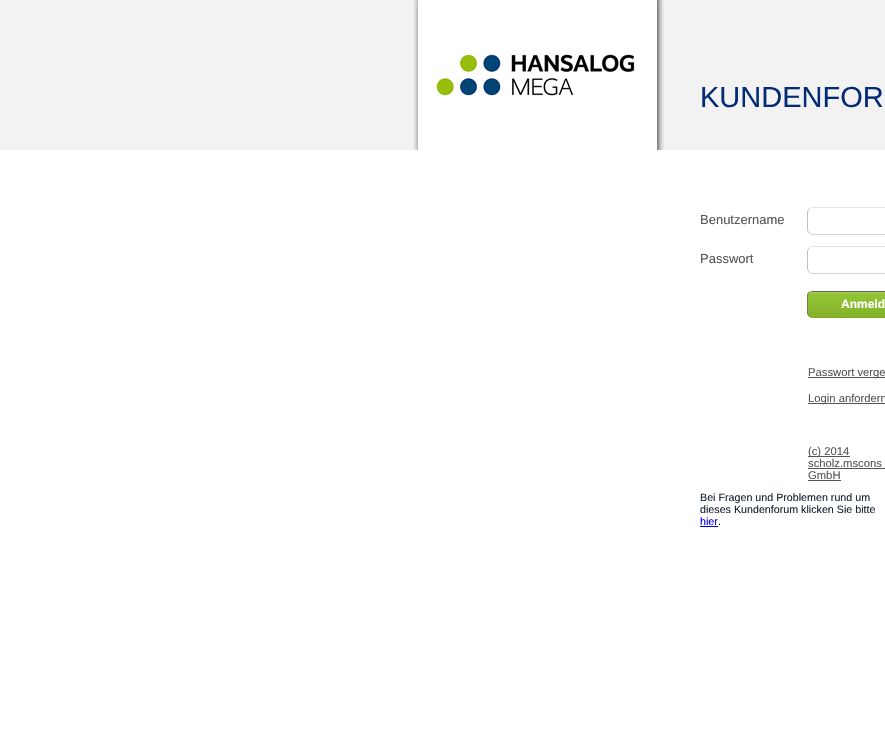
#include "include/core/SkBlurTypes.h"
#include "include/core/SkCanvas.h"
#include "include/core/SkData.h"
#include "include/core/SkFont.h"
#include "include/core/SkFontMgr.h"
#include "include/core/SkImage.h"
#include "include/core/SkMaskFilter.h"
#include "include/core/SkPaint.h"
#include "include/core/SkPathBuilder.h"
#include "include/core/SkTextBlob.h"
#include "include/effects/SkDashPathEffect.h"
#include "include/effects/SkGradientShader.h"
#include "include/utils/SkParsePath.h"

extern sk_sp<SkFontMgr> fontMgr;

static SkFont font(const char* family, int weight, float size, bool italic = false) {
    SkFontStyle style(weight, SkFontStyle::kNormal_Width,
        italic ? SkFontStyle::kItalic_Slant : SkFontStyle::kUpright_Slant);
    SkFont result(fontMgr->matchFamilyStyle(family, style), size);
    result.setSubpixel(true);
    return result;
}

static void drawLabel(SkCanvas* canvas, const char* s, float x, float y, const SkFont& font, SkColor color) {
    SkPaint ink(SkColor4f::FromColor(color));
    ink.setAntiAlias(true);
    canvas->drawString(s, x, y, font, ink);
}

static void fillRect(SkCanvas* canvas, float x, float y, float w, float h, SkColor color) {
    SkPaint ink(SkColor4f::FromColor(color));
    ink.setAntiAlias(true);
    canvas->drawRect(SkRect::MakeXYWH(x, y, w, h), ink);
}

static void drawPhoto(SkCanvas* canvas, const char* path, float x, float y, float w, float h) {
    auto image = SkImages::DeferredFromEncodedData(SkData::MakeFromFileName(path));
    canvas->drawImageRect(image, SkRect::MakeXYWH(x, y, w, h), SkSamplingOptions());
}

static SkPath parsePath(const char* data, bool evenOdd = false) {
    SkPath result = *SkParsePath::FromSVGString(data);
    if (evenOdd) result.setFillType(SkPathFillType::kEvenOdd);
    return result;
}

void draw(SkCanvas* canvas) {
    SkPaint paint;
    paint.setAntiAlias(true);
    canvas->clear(0xFFFFFFFF);
    fillRect(canvas, 0, 0, 885, 150, 0xFFF2F2F2);
    drawPhoto(canvas, "assets/img1.png", 413, 0, 251, 150);
    SkFont font1 = font("Liberation Sans", 400, 29);
    drawLabel(canvas, "KUNDENFOR", 700, 107, font1, 0xFF052B77);
    SkFont font2 = font("Liberation Sans", 400, 13);
    drawLabel(canvas, "Benutzername", 700, 224, font2, 0xFF555555);
    paint.setStroke(true);
    paint.setStrokeWidth(1);
    paint.setColor(0xFFE5E5E5);
    canvas->drawPath(parsePath("M809 209C810 208 811.5 207.5 813 207.5H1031C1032.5 207.5 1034 208 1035 209"), paint);
    paint.setColor(0xFFD3D3D3);
    canvas->drawPath(parsePath("M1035 233C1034 234 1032.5 234.5 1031 234.5H813C811.5 234.5 810 234 809 233"), paint);
    paint.setColor(0xFFC0C0C0);
    canvas->drawPath(parsePath("M809 233C808 232 807.5 230.5 807.5 229V213C807.5 211.5 808 210 809 209"), paint);
    drawLabel(canvas, "Passwort", 700, 263, font2, 0xFF555555);
    paint.setColor(0xFFE5E5E5);
    canvas->drawPath(parsePath("M809 248C810 247 811.5 246.5 813 246.5H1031C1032.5 246.5 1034 247 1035 248"), paint);
    paint.setColor(0xFFD3D3D3);
    canvas->drawPath(parsePath("M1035 272C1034 273 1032.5 273.5 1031 273.5H813C811.5 273.5 810 273 809 272"), paint);
    paint.setColor(0xFFC0C0C0);
    canvas->drawPath(parsePath("M809 272C808 271 807.5 269.5 807.5 268V252C807.5 250.5 808 249 809 248"), paint);
    drawPhoto(canvas, "assets/img2.png", 807, 291, 78, 27);
    paint.setColor(0xFFFFFFFF);
    canvas->drawPath(parsePath("M809 292C810 291 811.5 290.5 813 290.5H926C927.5 290.5 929 291 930 292"), paint);
    paint.setColor(0xFF7FAC26);
    canvas->drawPath(parsePath("M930 316C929 317 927.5 317.5 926 317.5H813C811.5 317.5 810 317 809 316"), paint);
    paint.setColor(0xFF70824C);
    canvas->drawPath(parsePath("M809 316C808 315 807.5 313.5 807.5 312V296C807.5 294.5 808 293 809 292"), paint);
    SkFont font3 = font("Liberation Sans", 700, 12);
    drawLabel(canvas, "Anmeld", 841, 308, font3, 0xFFFFFFFF);
    fillRect(canvas, 808, 377, 77, 1, 0xFF555555);
    SkFont font4 = font("Liberation Sans", 400, 11.25f);
    drawLabel(canvas, "Passwort verge", 808, 376, font4, 0xFF555555);
    fillRect(canvas, 808, 403, 77, 1, 0xFF555555);
    drawLabel(canvas, "Login anfordern", 808, 402, font4, 0xFF555555);
    fillRect(canvas, 808, 456, 42, 1, 0xFF555555);
    drawLabel(canvas, "(c) 2014", 808, 455, font4, 0xFF555555);
    drawLabel(canvas, "scholz.mscons", 808, 467, font4, 0xFF555555);
    fillRect(canvas, 808, 468, 77, 1, 0xFF555555);
    drawLabel(canvas, "GmbH", 808, 479, font4, 0xFF555555);
    fillRect(canvas, 808, 480, 33, 1, 0xFF555555);
    SkFont font5 = font("Liberation Sans", 400, 10.7f);
    drawLabel(canvas, "Bei Fragen und Problemen rund um", 700, 501, font5, 0xFF172232);
    drawLabel(canvas, "dieses Kundenforum klicken Sie bitte", 700, 513, font5, 0xFF172232);
    drawLabel(canvas, "hier", 700, 525, font5, 0xFF0000EE);
    fillRect(canvas, 700, 526, 18, 1, 0xFF0000EE);
    drawLabel(canvas, ".", 718, 525, font5, 0xFF172232);
}
